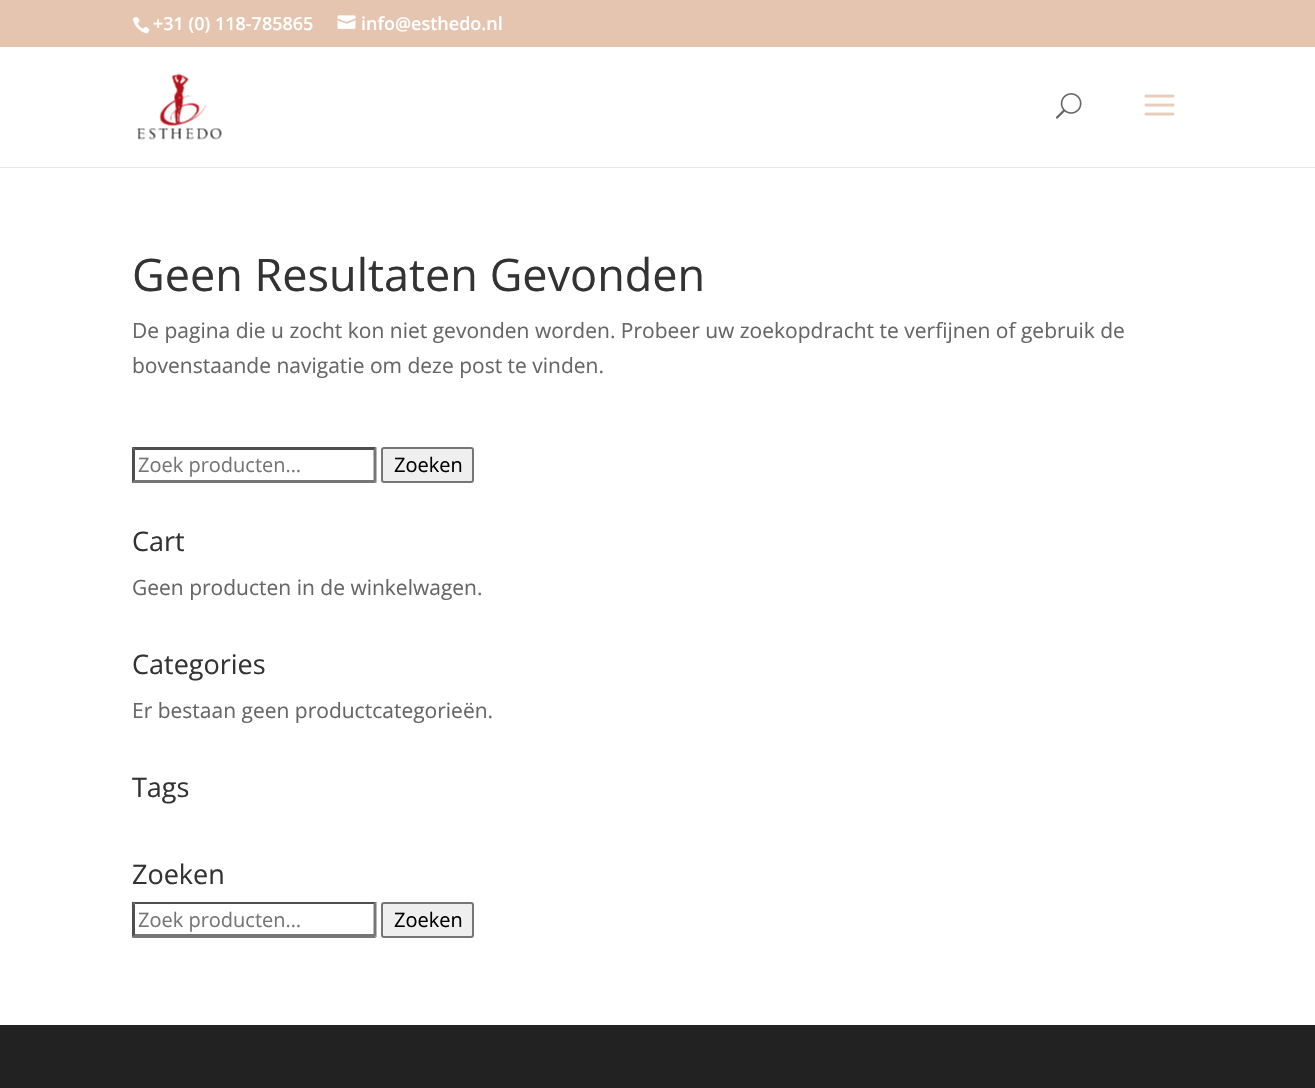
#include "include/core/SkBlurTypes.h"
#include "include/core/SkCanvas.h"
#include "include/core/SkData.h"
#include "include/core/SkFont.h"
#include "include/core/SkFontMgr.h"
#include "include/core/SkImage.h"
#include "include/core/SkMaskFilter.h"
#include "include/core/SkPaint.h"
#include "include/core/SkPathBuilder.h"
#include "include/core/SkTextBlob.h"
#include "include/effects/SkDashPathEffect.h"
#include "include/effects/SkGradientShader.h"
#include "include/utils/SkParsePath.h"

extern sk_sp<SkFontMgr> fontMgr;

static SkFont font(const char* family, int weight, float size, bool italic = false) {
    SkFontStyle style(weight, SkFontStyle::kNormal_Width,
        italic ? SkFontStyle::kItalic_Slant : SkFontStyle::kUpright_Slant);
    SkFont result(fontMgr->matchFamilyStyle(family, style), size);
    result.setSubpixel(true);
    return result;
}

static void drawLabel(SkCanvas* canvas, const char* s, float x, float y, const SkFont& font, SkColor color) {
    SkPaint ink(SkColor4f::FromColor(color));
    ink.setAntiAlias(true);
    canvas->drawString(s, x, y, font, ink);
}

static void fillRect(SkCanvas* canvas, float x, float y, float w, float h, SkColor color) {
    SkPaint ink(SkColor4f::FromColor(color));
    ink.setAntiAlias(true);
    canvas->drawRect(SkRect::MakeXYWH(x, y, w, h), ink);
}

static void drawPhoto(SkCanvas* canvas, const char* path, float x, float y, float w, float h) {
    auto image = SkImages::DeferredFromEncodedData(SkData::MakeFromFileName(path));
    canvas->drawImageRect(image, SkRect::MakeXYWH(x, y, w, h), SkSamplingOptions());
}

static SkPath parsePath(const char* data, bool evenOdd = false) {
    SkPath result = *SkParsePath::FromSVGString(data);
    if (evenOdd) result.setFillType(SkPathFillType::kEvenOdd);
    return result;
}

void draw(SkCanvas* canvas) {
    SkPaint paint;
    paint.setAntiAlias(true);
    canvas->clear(0xFFFFFFFF);
    fillRect(canvas, 0, 0, 1315, 47, 0xFFE5C5AF);
    drawPhoto(canvas, "assets/img1.png", 132, 16, 18, 18);
    SkFont font1 = font("Open Sans", 600, 18);
    drawLabel(canvas, "+31 (0) 118-785865", 153, 30, font1, 0xFFFFFFFF);
    drawPhoto(canvas, "assets/img2.png", 337, 15, 19, 14);
    drawLabel(canvas, "info@esthedo.nl", 361, 30, font1, 0xFFFFFFFF);
    paint.setColor(0xFFE6E6E6);
    canvas->drawPath(parsePath("M0 166V168H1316V48V166Z"), paint);
    fillRect(canvas, 0, 166, 1315, 1, 0xFFFFFFFF);
    drawPhoto(canvas, "assets/img3.png", 137, 73, 85, 67);
    drawPhoto(canvas, "assets/img4.png", 1055, 93, 27, 26);
    drawPhoto(canvas, "assets/img5.png", 1144, 94, 31, 22);
    SkFont font2 = font("Open Sans", 400, 45);
    drawLabel(canvas, "Geen Resultaten Gevonden", 132, 291, font2, 0xFF333333);
    SkFont font3 = font("Open Sans", 400, 21);
    drawLabel(canvas, "De pagina die u zocht kon niet gevonden worden. Probeer uw zoekopdracht te verfijnen of gebruik de", 132, 338, font3, 0xFF666666);
    drawLabel(canvas, "bovenstaande navigatie om deze post te vinden.", 132, 373, font3, 0xFF666666);
    paint.setColor(0xFF4F4F4F);
    canvas->drawPath(parsePath("M132 447H376L374 450H135Z"), paint);
    paint.setColor(0xFF767676);
    canvas->drawPath(parsePath("M376.5 447V483L373.5 480V450Z"), paint);
    canvas->drawPath(parsePath("M376 483H132L135 480H374Z"), paint);
    paint.setColor(0xFF4F4F4F);
    canvas->drawPath(parsePath("M132 483V447L135 450V480Z"), paint);
    SkFont font4 = font("Open Sans", 400, 20);
    drawLabel(canvas, "Zoek producten…", 138, 472, font4, 0xFF757575);
    paint.setColor(0xFFEFEFEF);
    canvas->drawRoundRect(SkRect::MakeXYWH(382, 448, 91, 34), 2, 2, paint);
    paint.setStroke(true);
    paint.setStrokeWidth(2);
    paint.setColor(0xFF767676);
    canvas->drawRoundRect(SkRect::MakeXYWH(382, 448, 91, 34), 2, 2, paint);
    drawLabel(canvas, "Zoeken", 394, 472, font4, 0xFF000000);
    SkFont font5 = font("Open Sans", 400, 27);
    drawLabel(canvas, "Cart", 132, 551, font5, 0xFF333333);
    drawLabel(canvas, "Geen producten in de winkelwagen.", 132, 595, font3, 0xFF666666);
    drawLabel(canvas, "Categories", 132, 674, font5, 0xFF333333);
    drawLabel(canvas, "Er bestaan geen productcategorieën.", 132, 718, font3, 0xFF666666);
    drawLabel(canvas, "Tags", 132, 797, font5, 0xFF333333);
    drawLabel(canvas, "Zoeken", 132, 884, font5, 0xFF333333);
    paint.setStroke(false);
    paint.setColor(0xFF4F4F4F);
    canvas->drawPath(parsePath("M132 902H376L374 904H135Z"), paint);
    paint.setColor(0xFF767676);
    canvas->drawPath(parsePath("M376.5 901.5V937.5L373.5 934.5V904.5Z"), paint);
    canvas->drawPath(parsePath("M376 938H132L135 934H374Z"), paint);
    paint.setColor(0xFF4F4F4F);
    canvas->drawPath(parsePath("M132 937.5V901.5L135 904.5V934.5Z"), paint);
    drawLabel(canvas, "Zoek producten…", 138, 927, font4, 0xFF757575);
    paint.setColor(0xFFEFEFEF);
    canvas->drawRoundRect(SkRect::MakeXYWH(382, 903, 91, 34), 2, 2, paint);
    paint.setStroke(true);
    paint.setColor(0xFF767676);
    canvas->drawRoundRect(SkRect::MakeXYWH(382, 903, 91, 34), 2, 2, paint);
    drawLabel(canvas, "Zoeken", 394, 927, font4, 0xFF000000);
    fillRect(canvas, 0, 1025, 1315, 63, 0xFF222222);
}
